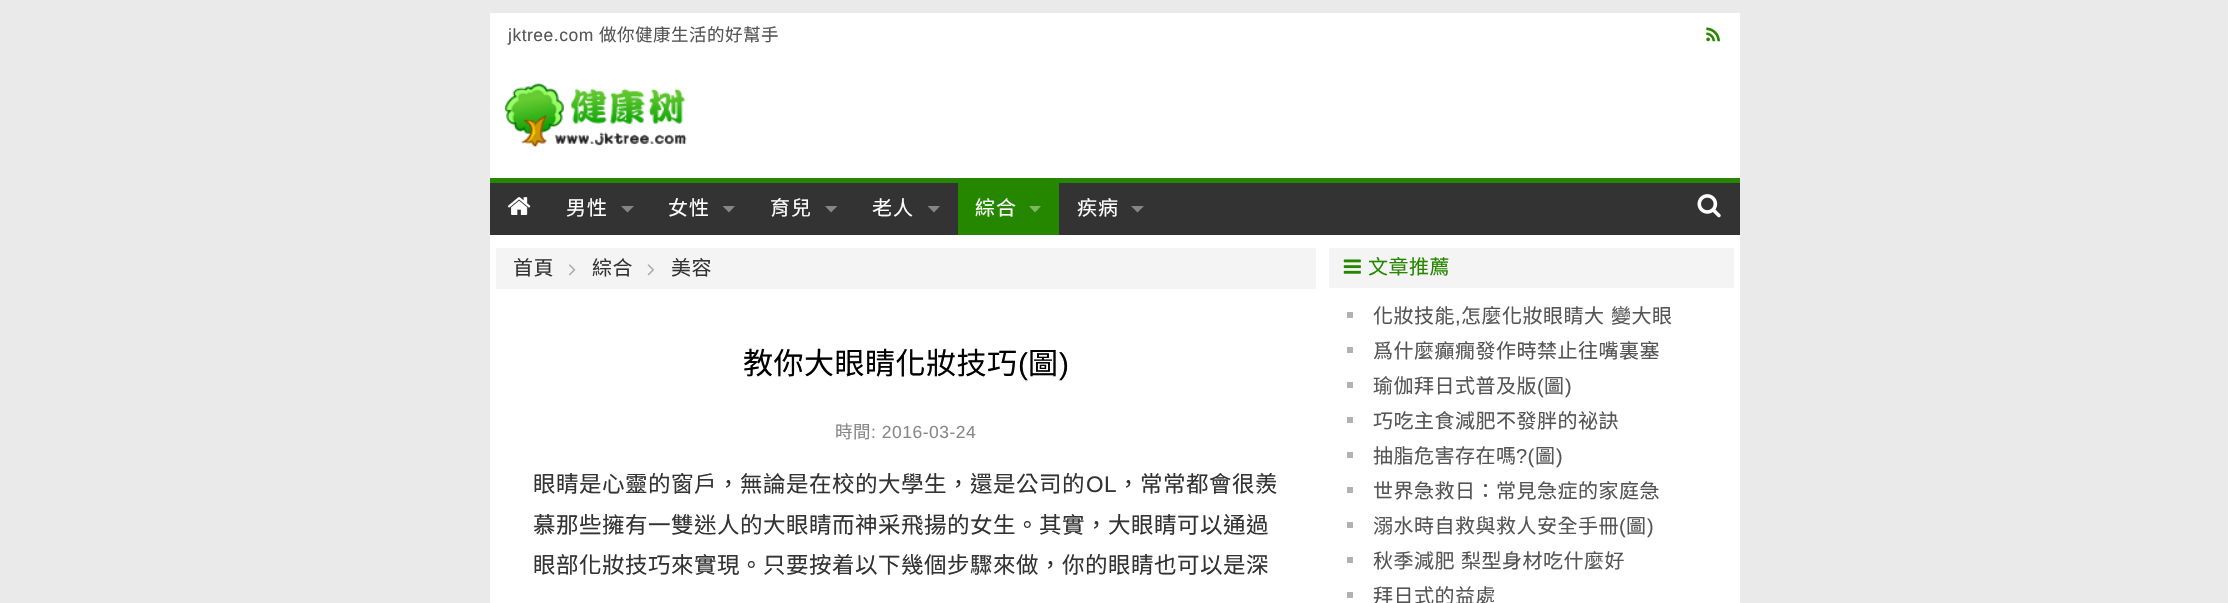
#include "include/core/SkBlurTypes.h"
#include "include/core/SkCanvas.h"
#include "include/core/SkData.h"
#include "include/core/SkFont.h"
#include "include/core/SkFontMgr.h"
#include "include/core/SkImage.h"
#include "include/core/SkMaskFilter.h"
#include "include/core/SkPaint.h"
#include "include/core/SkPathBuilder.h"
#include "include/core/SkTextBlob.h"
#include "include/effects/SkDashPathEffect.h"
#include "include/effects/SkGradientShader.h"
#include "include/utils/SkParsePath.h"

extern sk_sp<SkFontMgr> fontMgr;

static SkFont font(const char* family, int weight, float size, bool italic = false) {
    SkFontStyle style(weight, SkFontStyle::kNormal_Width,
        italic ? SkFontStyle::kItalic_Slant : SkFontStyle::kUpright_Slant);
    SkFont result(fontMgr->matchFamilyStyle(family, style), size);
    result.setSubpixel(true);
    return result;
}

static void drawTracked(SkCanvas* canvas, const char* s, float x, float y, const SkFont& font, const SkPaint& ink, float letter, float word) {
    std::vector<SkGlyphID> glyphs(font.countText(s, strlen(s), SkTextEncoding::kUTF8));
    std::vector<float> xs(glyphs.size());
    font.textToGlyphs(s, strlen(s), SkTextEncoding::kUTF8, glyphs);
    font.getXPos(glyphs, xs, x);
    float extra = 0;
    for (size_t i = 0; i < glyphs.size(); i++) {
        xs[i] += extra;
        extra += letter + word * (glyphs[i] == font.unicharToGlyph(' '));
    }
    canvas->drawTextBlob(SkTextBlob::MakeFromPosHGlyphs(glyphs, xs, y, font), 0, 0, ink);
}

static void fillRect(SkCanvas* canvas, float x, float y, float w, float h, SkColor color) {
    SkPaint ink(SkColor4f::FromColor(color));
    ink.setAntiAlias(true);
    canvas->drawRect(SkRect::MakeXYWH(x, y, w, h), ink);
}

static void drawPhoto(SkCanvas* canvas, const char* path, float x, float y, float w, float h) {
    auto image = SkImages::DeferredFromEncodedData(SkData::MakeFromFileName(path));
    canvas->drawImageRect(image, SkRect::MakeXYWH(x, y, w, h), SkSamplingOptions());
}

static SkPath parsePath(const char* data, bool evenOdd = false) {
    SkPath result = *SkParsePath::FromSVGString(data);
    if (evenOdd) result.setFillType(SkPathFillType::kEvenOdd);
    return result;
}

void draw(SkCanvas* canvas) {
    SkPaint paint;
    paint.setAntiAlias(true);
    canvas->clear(0xFFEAEAEA);
    fillRect(canvas, 490, 13, 1250, 165, 0xFFFFFFFF);
    SkFont font1 = font("Liberation Sans", 400, 17.5f);
    paint.setColor(0xFF555555);
    drawTracked(canvas, "jktree.com", 508, 41, font1, paint, 0.5f, 0);
    SkFont font2 = font("Noto Sans CJK TC", 400, 17.5f);
    drawTracked(canvas, "做你健康生活的好幫手", 599, 41, font2, paint, 0.5f, 0);
    drawPhoto(canvas, "assets/img1.png", 1706, 27, 14, 15);
    drawPhoto(canvas, "assets/img2.png", 504, 83, 183, 64);
    fillRect(canvas, 490, 183, 1250, 52, 0xFF333333);
    fillRect(canvas, 490, 178, 1250, 5, 0xFF258700);
    drawPhoto(canvas, "assets/img3.png", 507, 197, 24, 18);
    SkFont font3 = font("Noto Sans CJK TC", 400, 20);
    paint.setColor(0xFFFFFFFF);
    drawTracked(canvas, "男性", 566, 215, font3, paint, 1, 0);
    paint.setColor(0xFF858585);
    canvas->drawPath(parsePath("M621 206H634L627.5 212.5Z"), paint);
    paint.setColor(0xFFFFFFFF);
    drawTracked(canvas, "女性", 668, 215, font3, paint, 1, 0);
    paint.setColor(0xFF858585);
    canvas->drawPath(parsePath("M722.5 206H735L729 212.5Z"), paint);
    paint.setColor(0xFFFFFFFF);
    drawTracked(canvas, "育兒", 770, 215, font3, paint, 1, 0);
    paint.setColor(0xFF858585);
    canvas->drawPath(parsePath("M825 206H837.5L831 212.5Z"), paint);
    paint.setColor(0xFFFFFFFF);
    drawTracked(canvas, "老人", 872, 215, font3, paint, 1, 0);
    paint.setColor(0xFF858585);
    canvas->drawPath(parsePath("M927.5 206H940L934 212.5Z"), paint);
    fillRect(canvas, 958, 183, 101, 52, 0xFF258700);
    paint.setColor(0xFFFFFFFF);
    drawTracked(canvas, "綜合", 975, 215, font3, paint, 1, 0);
    paint.setColor(0xFF7CB766);
    canvas->drawPath(parsePath("M1029 206H1041L1035 212.5Z"), paint);
    paint.setColor(0xFFFFFFFF);
    drawTracked(canvas, "疾病", 1077, 215, font3, paint, 1, 0);
    paint.setColor(0xFF858585);
    canvas->drawPath(parsePath("M1131 206H1144L1137.5 212.5Z"), paint);
    drawPhoto(canvas, "assets/img4.png", 1697, 194, 24, 24);
    fillRect(canvas, 490, 235, 1250, 368, 0xFFFFFFFF);
    fillRect(canvas, 496, 248, 820, 41, 0xFFF4F4F4);
    paint.setColor(0xFF333333);
    drawTracked(canvas, "首頁", 513, 275, font3, paint, 0.5f, 0);
    drawPhoto(canvas, "assets/img5.png", 569, 264, 7, 12);
    drawTracked(canvas, "綜合", 592, 275, font3, paint, 0.5f, 0);
    drawPhoto(canvas, "assets/img6.png", 647, 264, 7, 12);
    drawTracked(canvas, "美容", 671, 275, font3, paint, 0.5f, 0);
    SkFont font4 = font("Noto Sans CJK TC", 400, 30);
    paint.setColor(0xFF000000);
    drawTracked(canvas, "教你大眼睛化妝技巧", 743, 374, font4, paint, 0.5f, 0);
    SkFont font5 = font("Liberation Sans", 400, 30);
    drawTracked(canvas, "(", 1018, 374, font5, paint, 0.5f, 0);
    drawTracked(canvas, "圖", 1028, 374, font4, paint, 0.5f, 0);
    drawTracked(canvas, ")", 1059, 374, font5, paint, 0.5f, 0);
    paint.setColor(0xFF888888);
    drawTracked(canvas, "時間", 835, 438, font2, paint, 0.5f, 0);
    drawTracked(canvas, ": 2016-03-24", 871, 438, font1, paint, 0.5f, 0);
    SkFont font6 = font("Noto Sans CJK TC", 400, 22.5f);
    paint.setColor(0xFF333333);
    drawTracked(canvas, "眼睛是心靈的窗戶，無論是在校的大學生，還是公司的", 533, 492, font6, paint, 0.5f, 0);
    SkFont font7 = font("Liberation Sans", 400, 22.5f);
    drawTracked(canvas, "OL", 1086, 492, font7, paint, 0.5f, 0);
    drawTracked(canvas, "，常常都會很羨", 1117, 492, font6, paint, 0.5f, 0);
    drawTracked(canvas, "慕那些擁有一雙迷人的大眼睛而神采飛揚的女生。其實，大眼睛可以通過", 533, 533, font6, paint, 0.5f, 0);
    drawTracked(canvas, "眼部化妝技巧來實現。只要按着以下幾個步驟來做，你的眼睛也可以是深", 533, 573, font6, paint, 0.5f, 0);
    fillRect(canvas, 1329, 248, 405, 40, 0xFFF4F4F4);
    drawPhoto(canvas, "assets/img7.png", 1343, 259, 18, 15);
    paint.setColor(0xFF258700);
    drawTracked(canvas, "文章推薦", 1368, 274, font3, paint, 0.5f, 0);
    fillRect(canvas, 1347, 312, 6, 6, 0xFFB2B2B2);
    paint.setColor(0xFF555555);
    drawTracked(canvas, "化妝技能", 1373, 323, font3, paint, 0.5f, 0);
    SkFont font8 = font("Liberation Sans", 400, 20);
    drawTracked(canvas, ",", 1455, 323, font8, paint, 0.5f, 0);
    drawTracked(canvas, "怎麼化妝眼睛大", 1461, 323, font3, paint, 0.5f, 0);
    drawTracked(canvas, "變大眼", 1611, 323, font3, paint, 0.5f, 0);
    fillRect(canvas, 1347, 347, 6, 6, 0xFFB2B2B2);
    drawTracked(canvas, "爲什麼癲癇發作時禁止往嘴裏塞", 1373, 358, font3, paint, 0.5f, 0);
    fillRect(canvas, 1347, 382, 6, 6, 0xFFB2B2B2);
    drawTracked(canvas, "瑜伽拜日式普及版", 1373, 393, font3, paint, 0.5f, 0);
    drawTracked(canvas, "(", 1537, 393, font8, paint, 0.5f, 0);
    drawTracked(canvas, "圖", 1544, 393, font3, paint, 0.5f, 0);
    drawTracked(canvas, ")", 1565, 393, font8, paint, 0.5f, 0);
    fillRect(canvas, 1347, 417, 6, 6, 0xFFB2B2B2);
    drawTracked(canvas, "巧吃主食減肥不發胖的祕訣", 1373, 428, font3, paint, 0.5f, 0);
    fillRect(canvas, 1347, 452, 6, 6, 0xFFB2B2B2);
    drawTracked(canvas, "抽脂危害存在嗎", 1373, 463, font3, paint, 0.5f, 0);
    drawTracked(canvas, "?(", 1516, 463, font8, paint, 0.5f, 0);
    drawTracked(canvas, "圖", 1535, 463, font3, paint, 0.5f, 0);
    drawTracked(canvas, ")", 1556, 463, font8, paint, 0.5f, 0);
    fillRect(canvas, 1347, 487, 6, 6, 0xFFB2B2B2);
    drawTracked(canvas, "世界急救日：常見急症的家庭急", 1373, 498, font3, paint, 0.5f, 0);
    fillRect(canvas, 1347, 522, 6, 6, 0xFFB2B2B2);
    drawTracked(canvas, "溺水時自救與救人安全手冊", 1373, 533, font3, paint, 0.5f, 0);
    drawTracked(canvas, "(", 1619, 533, font8, paint, 0.5f, 0);
    drawTracked(canvas, "圖", 1626, 533, font3, paint, 0.5f, 0);
    drawTracked(canvas, ")", 1647, 533, font8, paint, 0.5f, 0);
    fillRect(canvas, 1347, 557, 6, 6, 0xFFB2B2B2);
    drawTracked(canvas, "秋季減肥", 1373, 568, font3, paint, 0.5f, 0);
    drawTracked(canvas, "梨型身材吃什麼好", 1461, 568, font3, paint, 0.5f, 0);
    fillRect(canvas, 1347, 592, 6, 6, 0xFFB2B2B2);
    drawTracked(canvas, "拜日式的益處", 1373, 603, font3, paint, 0.5f, 0);
}
